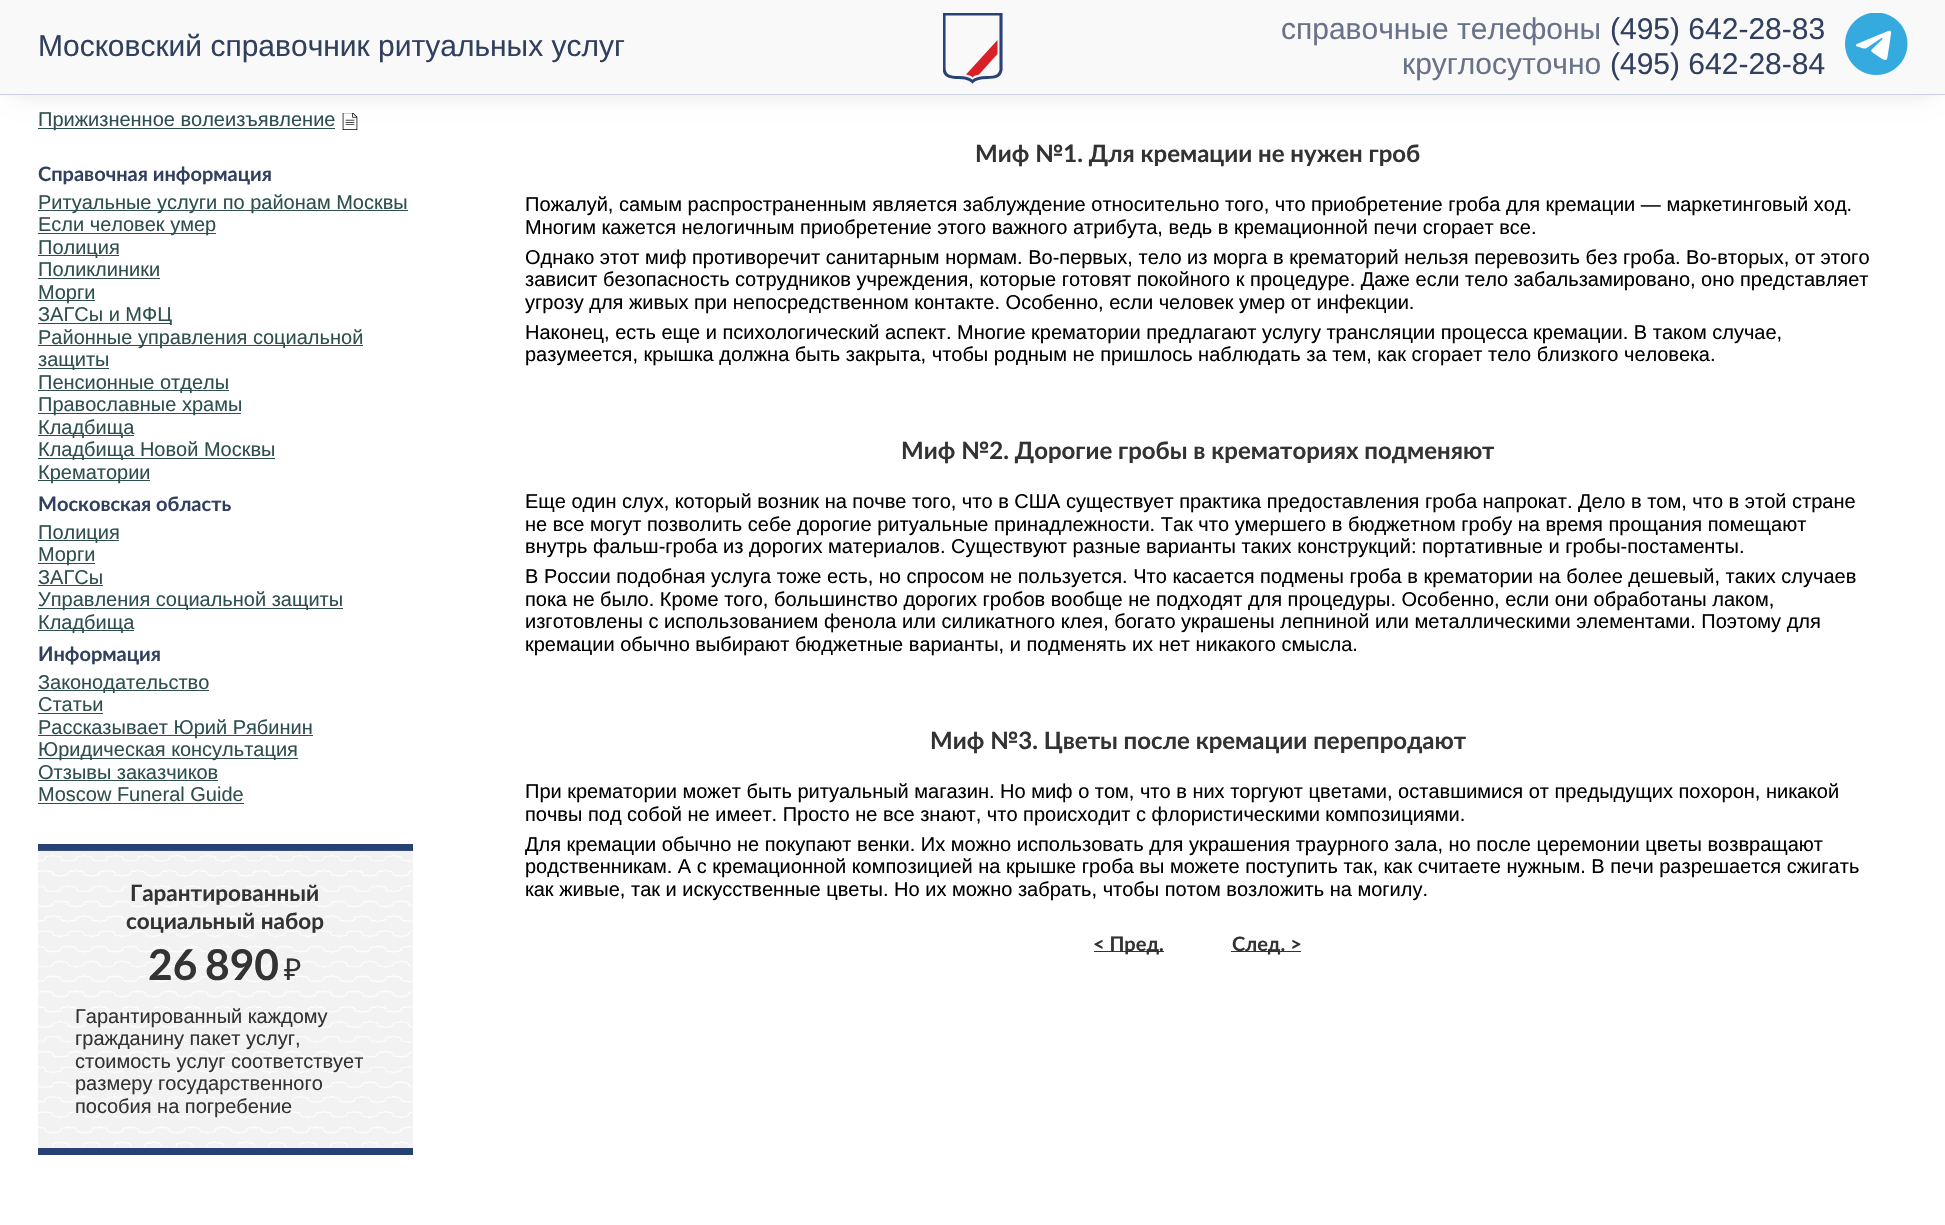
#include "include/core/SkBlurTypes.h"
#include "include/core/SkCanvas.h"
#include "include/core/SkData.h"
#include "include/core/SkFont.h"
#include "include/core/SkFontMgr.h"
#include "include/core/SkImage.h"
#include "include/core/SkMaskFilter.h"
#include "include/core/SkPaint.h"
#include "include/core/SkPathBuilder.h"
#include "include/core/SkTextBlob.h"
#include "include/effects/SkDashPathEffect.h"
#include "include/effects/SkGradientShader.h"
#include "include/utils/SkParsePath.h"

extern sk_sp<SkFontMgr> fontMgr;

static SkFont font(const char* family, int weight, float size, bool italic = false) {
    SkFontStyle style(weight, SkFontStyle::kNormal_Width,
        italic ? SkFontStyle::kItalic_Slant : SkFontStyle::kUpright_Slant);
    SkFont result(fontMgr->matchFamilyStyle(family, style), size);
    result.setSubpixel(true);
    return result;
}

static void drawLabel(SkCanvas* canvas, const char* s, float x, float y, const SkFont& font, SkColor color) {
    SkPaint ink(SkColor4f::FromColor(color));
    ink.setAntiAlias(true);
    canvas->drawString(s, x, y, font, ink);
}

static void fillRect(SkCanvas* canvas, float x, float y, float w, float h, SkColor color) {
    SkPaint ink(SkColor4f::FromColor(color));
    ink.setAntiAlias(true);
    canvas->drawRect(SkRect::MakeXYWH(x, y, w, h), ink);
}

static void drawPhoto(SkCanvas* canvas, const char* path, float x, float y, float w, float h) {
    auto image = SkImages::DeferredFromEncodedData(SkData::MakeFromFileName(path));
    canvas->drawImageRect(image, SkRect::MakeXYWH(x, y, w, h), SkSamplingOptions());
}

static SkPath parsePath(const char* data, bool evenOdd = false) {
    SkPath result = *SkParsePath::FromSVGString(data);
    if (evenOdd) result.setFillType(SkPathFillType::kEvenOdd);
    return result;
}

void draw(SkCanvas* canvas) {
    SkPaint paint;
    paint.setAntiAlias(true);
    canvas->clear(0xFFFFFFFF);
    drawPhoto(canvas, "assets/img2.png", 342, 113, 16, 17);
    paint.setColor(0x1A000000);
    paint.setMaskFilter(SkMaskFilter::MakeBlur(kNormal_SkBlurStyle, 9.5f));
    canvas->drawRect(SkRect::MakeXYWH(13, 25, 1920, 70), paint);
    paint.setMaskFilter(nullptr);
    fillRect(canvas, 0, 0, 1945, 94, 0xFFF9F9F9);
    canvas->save();
    canvas->clipRect(SkRect::MakeXYWH(943, 13, 60, 71));
    paint.setStroke(true);
    paint.setStrokeWidth(3.1f);
    paint.setColor(0xFF284275);
    canvas->drawPath(parsePath("M944 14H1001V70C998.5 83 981 73 972.5 81.5C970.5 79.5 968 78.5 965 78C957.5 76.5 944 80.5 944 67.5Z"), paint);
    canvas->restore();
    paint.setStroke(false);
    paint.setColor(0xFFD72027);
    canvas->drawPath(parsePath("M997.5 40L966 74.5C968.5 75 971 75.5 972.5 77.5C974 75.5 976.5 75 979 74.5L997.5 54Z", true), paint);
    fillRect(canvas, 0, 94, 1945, 1, 0xFFCBD1E0);
    SkFont font1 = font("Liberation Sans", 400, 30);
    drawLabel(canvas, "Московский справочник ритуальных услуг", 38, 56, font1, 0xFF32405F);
    drawLabel(canvas, "справочные телефоны", 1281, 39, font1, 0xFF687289);
    drawLabel(canvas, "(495) 642-28-83", 1610, 39, font1, 0xFF32405F);
    drawPhoto(canvas, "assets/img1.png", 1845, 13, 63, 62);
    drawLabel(canvas, "круглосуточно", 1402, 74, font1, 0xFF687289);
    drawLabel(canvas, "(495) 642-28-84", 1610, 74, font1, 0xFF32405F);
    fillRect(canvas, 38, 128, 297, 1, 0xFF2F4F4F);
    SkFont font2 = font("Liberation Sans", 400, 20);
    drawLabel(canvas, "Прижизненное волеизъявление", 38, 126, font2, 0xFF2F4F4F);
    SkFont font3 = font("Lato", 700, 20);
    drawLabel(canvas, "Справочная информация", 38, 181, font3, 0xFF32405F);
    fillRect(canvas, 38, 210, 370, 1, 0xFF2F4F4F);
    drawLabel(canvas, "Ритуальные услуги по районам Москвы", 38, 209, font2, 0xFF2F4F4F);
    fillRect(canvas, 38, 233, 178, 1, 0xFF2F4F4F);
    drawLabel(canvas, "Если человек умер", 38, 231, font2, 0xFF2F4F4F);
    fillRect(canvas, 38, 255, 81, 1, 0xFF2F4F4F);
    drawLabel(canvas, "Полиция", 38, 254, font2, 0xFF2F4F4F);
    drawLabel(canvas, "Поликлиники", 38, 276, font2, 0xFF2F4F4F);
    fillRect(canvas, 38, 278, 122, 1, 0xFF2F4F4F);
    fillRect(canvas, 38, 300, 57, 1, 0xFF2F4F4F);
    drawLabel(canvas, "Морги", 38, 299, font2, 0xFF2F4F4F);
    fillRect(canvas, 38, 323, 133, 1, 0xFF2F4F4F);
    drawLabel(canvas, "ЗАГСы и МФЦ", 38, 321, font2, 0xFF2F4F4F);
    fillRect(canvas, 38, 345, 325, 1, 0xFF2F4F4F);
    drawLabel(canvas, "Районные управления социальной", 38, 344, font2, 0xFF2F4F4F);
    fillRect(canvas, 38, 368, 71, 1, 0xFF2F4F4F);
    drawLabel(canvas, "защиты", 38, 366, font2, 0xFF2F4F4F);
    fillRect(canvas, 38, 390, 191, 1, 0xFF2F4F4F);
    drawLabel(canvas, "Пенсионные отделы", 38, 389, font2, 0xFF2F4F4F);
    fillRect(canvas, 38, 413, 203, 1, 0xFF2F4F4F);
    drawLabel(canvas, "Православные храмы", 38, 411, font2, 0xFF2F4F4F);
    fillRect(canvas, 38, 435, 96, 1, 0xFF2F4F4F);
    drawLabel(canvas, "Кладбища", 38, 434, font2, 0xFF2F4F4F);
    fillRect(canvas, 38, 458, 237, 1, 0xFF2F4F4F);
    drawLabel(canvas, "Кладбища Новой Москвы", 38, 456, font2, 0xFF2F4F4F);
    fillRect(canvas, 38, 480, 112, 1, 0xFF2F4F4F);
    drawLabel(canvas, "Крематории", 38, 479, font2, 0xFF2F4F4F);
    drawLabel(canvas, "Московская область", 38, 511, font3, 0xFF32405F);
    fillRect(canvas, 38, 540, 81, 1, 0xFF2F4F4F);
    drawLabel(canvas, "Полиция", 38, 539, font2, 0xFF2F4F4F);
    fillRect(canvas, 38, 563, 57, 1, 0xFF2F4F4F);
    drawLabel(canvas, "Морги", 38, 561, font2, 0xFF2F4F4F);
    drawLabel(canvas, "ЗАГСы", 38, 584, font2, 0xFF2F4F4F);
    fillRect(canvas, 38, 585, 65, 1, 0xFF2F4F4F);
    fillRect(canvas, 38, 608, 305, 1, 0xFF2F4F4F);
    drawLabel(canvas, "Управления социальной защиты", 38, 606, font2, 0xFF2F4F4F);
    fillRect(canvas, 38, 630, 96, 1, 0xFF2F4F4F);
    drawLabel(canvas, "Кладбища", 38, 629, font2, 0xFF2F4F4F);
    drawLabel(canvas, "Информация", 38, 661, font3, 0xFF32405F);
    fillRect(canvas, 38, 690, 171, 1, 0xFF2F4F4F);
    drawLabel(canvas, "Законодательство", 38, 689, font2, 0xFF2F4F4F);
    drawLabel(canvas, "Статьи", 38, 711, font2, 0xFF2F4F4F);
    fillRect(canvas, 38, 713, 65, 1, 0xFF2F4F4F);
    fillRect(canvas, 38, 735, 275, 1, 0xFF2F4F4F);
    drawLabel(canvas, "Рассказывает Юрий Рябинин", 38, 734, font2, 0xFF2F4F4F);
    fillRect(canvas, 38, 758, 260, 1, 0xFF2F4F4F);
    drawLabel(canvas, "Юридическая консультация", 38, 756, font2, 0xFF2F4F4F);
    drawLabel(canvas, "Отзывы заказчиков", 38, 779, font2, 0xFF2F4F4F);
    fillRect(canvas, 38, 780, 180, 1, 0xFF2F4F4F);
    drawLabel(canvas, "Moscow Funeral Guide", 38, 801, font2, 0xFF2F4F4F);
    fillRect(canvas, 38, 803, 206, 1, 0xFF2F4F4F);
    fillRect(canvas, 38, 844, 375, 7, 0xFF284174);
    fillRect(canvas, 38, 1148, 375, 7, 0xFF284174);
    fillRect(canvas, 38, 851, 375, 297, 0xFFF2F2F2);
    drawPhoto(canvas, "assets/img3.png", 38, 850, 374, 297);
    SkFont font4 = font("Lato", 700, 22.5f);
    drawLabel(canvas, "Гарантированный", 130, 901, font4, 0xFF333333);
    drawLabel(canvas, "социальный набор", 126, 929, font4, 0xFF333333);
    SkFont font5 = font("Lato", 700, 42.5f);
    drawLabel(canvas, "26", 148, 980, font5, 0xFF333333);
    drawLabel(canvas, "890", 205, 980, font5, 0xFF333333);
    SkFont font6 = font("Noto Sans", 400, 30);
    drawLabel(canvas, "₽", 284, 980, font6, 0xFF333333);
    drawLabel(canvas, "Гарантированный каждому", 75, 1023, font2, 0xFF333333);
    drawLabel(canvas, "гражданину пакет услуг,", 75, 1045, font2, 0xFF333333);
    drawLabel(canvas, "стоимость услуг соответствует", 75, 1068, font2, 0xFF333333);
    drawLabel(canvas, "размеру государственного", 75, 1090, font2, 0xFF333333);
    drawLabel(canvas, "пособия на погребение", 75, 1113, font2, 0xFF333333);
    SkFont font7 = font("Lato", 700, 24);
    drawLabel(canvas, "Миф №1. Для кремации не нужен гроб", 975, 162, font7, 0xFF333333);
    drawLabel(canvas, "Пожалуй, самым распространенным является заблуждение относительно того, что приобретение гроба для кремации — маркетинговый ход.", 525, 211, font2, 0xFF000000);
    drawLabel(canvas, "Многим кажется нелогичным приобретение этого важного атрибута, ведь в кремационной печи сгорает все.", 525, 234, font2, 0xFF000000);
    drawLabel(canvas, "Однако этот миф противоречит санитарным нормам. Во-первых, тело из морга в крематорий нельзя перевозить без гроба. Во-вторых, от этого", 525, 264, font2, 0xFF000000);
    drawLabel(canvas, "зависит безопасность сотрудников учреждения, которые готовят покойного к процедуре. Даже если тело забальзамировано, оно представляет", 525, 286, font2, 0xFF000000);
    drawLabel(canvas, "угрозу для живых при непосредственном контакте. Особенно, если человек умер от инфекции.", 525, 309, font2, 0xFF000000);
    drawLabel(canvas, "Наконец, есть еще и психологический аспект. Многие крематории предлагают услугу трансляции процесса кремации. В таком случае,", 525, 339, font2, 0xFF000000);
    drawLabel(canvas, "разумеется, крышка должна быть закрыта, чтобы родным не пришлось наблюдать за тем, как сгорает тело близкого человека.", 525, 361, font2, 0xFF000000);
    drawLabel(canvas, "Миф №2. Дорогие гробы в крематориях подменяют", 901, 459, font7, 0xFF333333);
    drawLabel(canvas, "Еще один слух, который возник на почве того, что в США существует практика предоставления гроба напрокат. Дело в том, что в этой стране", 525, 508, font2, 0xFF000000);
    drawLabel(canvas, "не все могут позволить себе дорогие ритуальные принадлежности. Так что умершего в бюджетном гробу на время прощания помещают", 525, 531, font2, 0xFF000000);
    drawLabel(canvas, "внутрь фальш-гроба из дорогих материалов. Существуют разные варианты таких конструкций: портативные и гробы-постаменты.", 525, 553, font2, 0xFF000000);
    drawLabel(canvas, "В России подобная услуга тоже есть, но спросом не пользуется. Что касается подмены гроба в крематории на более дешевый, таких случаев", 525, 583, font2, 0xFF000000);
    drawLabel(canvas, "пока не было. Кроме того, большинство дорогих гробов вообще не подходят для процедуры. Особенно, если они обработаны лаком,", 525, 606, font2, 0xFF000000);
    drawLabel(canvas, "изготовлены с использованием фенола или силикатного клея, богато украшены лепниной или металлическими элементами. Поэтому для", 525, 628, font2, 0xFF000000);
    drawLabel(canvas, "кремации обычно выбирают бюджетные варианты, и подменять их нет никакого смысла.", 525, 651, font2, 0xFF000000);
    drawLabel(canvas, "Миф №3. Цветы после кремации перепродают", 930, 749, font7, 0xFF333333);
    drawLabel(canvas, "При крематории может быть ритуальный магазин. Но миф о том, что в них торгуют цветами, оставшимися от предыдущих похорон, никакой", 525, 798, font2, 0xFF000000);
    drawLabel(canvas, "почвы под собой не имеет. Просто не все знают, что происходит с флористическими композициями.", 525, 821, font2, 0xFF000000);
    drawLabel(canvas, "Для кремации обычно не покупают венки. Их можно использовать для украшения траурного зала, но после церемонии цветы возвращают", 525, 851, font2, 0xFF000000);
    drawLabel(canvas, "родственникам. А с кремационной композицией на крышке гроба вы можете поступить так, как считаете нужным. В печи разрешается сжигать", 525, 873, font2, 0xFF000000);
    drawLabel(canvas, "как живые, так и искусственные цветы. Но их можно забрать, чтобы потом возложить на могилу.", 525, 896, font2, 0xFF000000);
    fillRect(canvas, 1094, 951, 70, 1, 0xFF333333);
    drawLabel(canvas, "< Пред.", 1093, 951, font3, 0xFF333333);
    fillRect(canvas, 1231, 951, 70, 1, 0xFF333333);
    drawLabel(canvas, "След. >", 1232, 951, font3, 0xFF333333);
}
